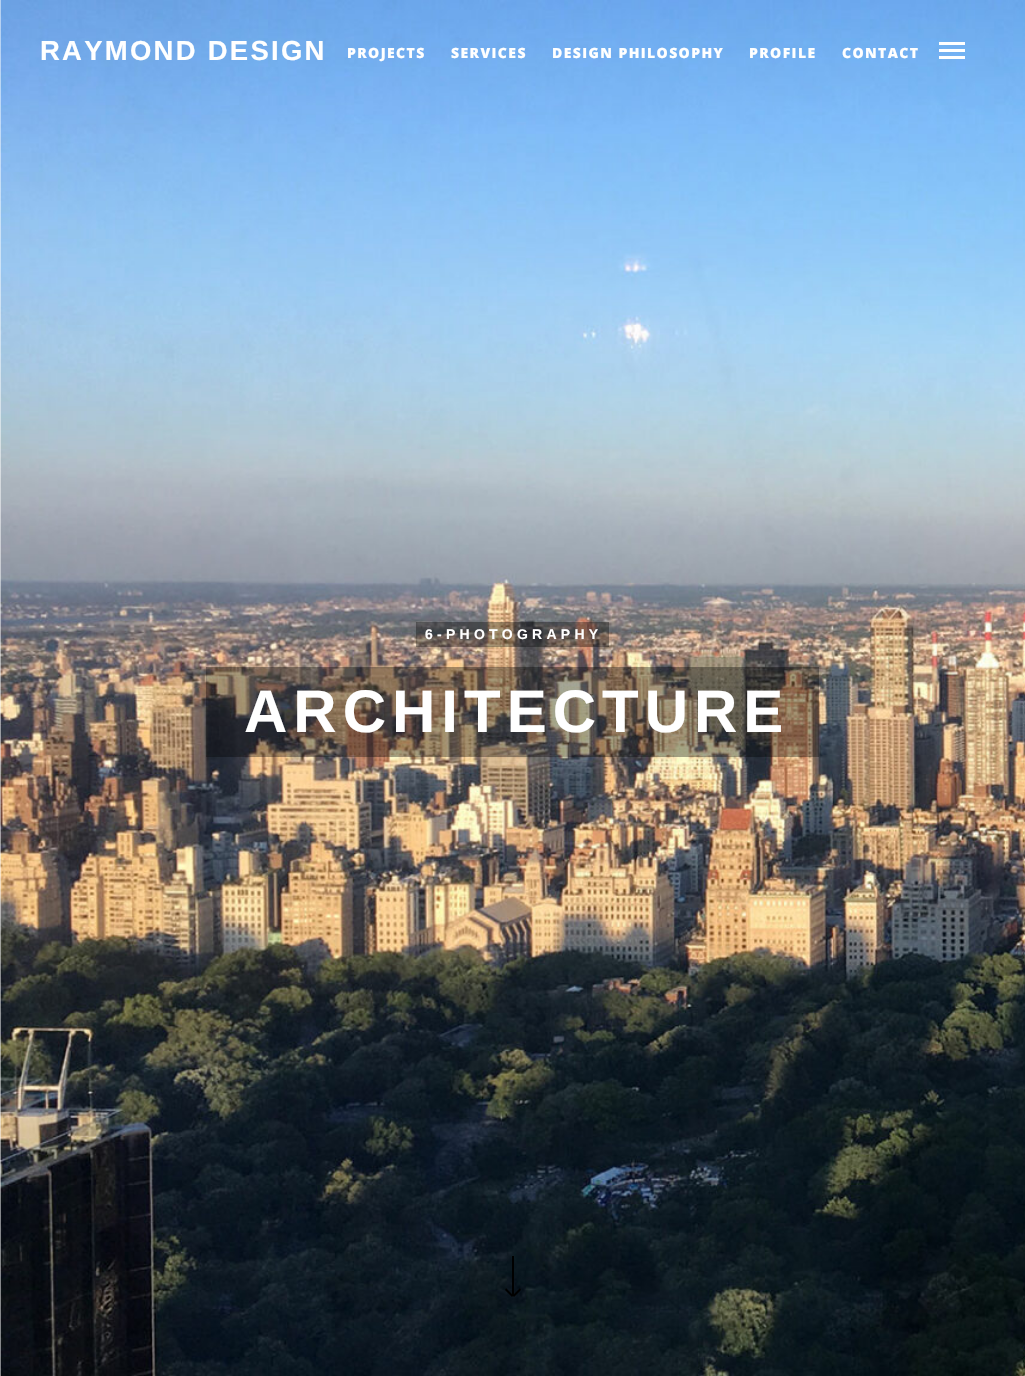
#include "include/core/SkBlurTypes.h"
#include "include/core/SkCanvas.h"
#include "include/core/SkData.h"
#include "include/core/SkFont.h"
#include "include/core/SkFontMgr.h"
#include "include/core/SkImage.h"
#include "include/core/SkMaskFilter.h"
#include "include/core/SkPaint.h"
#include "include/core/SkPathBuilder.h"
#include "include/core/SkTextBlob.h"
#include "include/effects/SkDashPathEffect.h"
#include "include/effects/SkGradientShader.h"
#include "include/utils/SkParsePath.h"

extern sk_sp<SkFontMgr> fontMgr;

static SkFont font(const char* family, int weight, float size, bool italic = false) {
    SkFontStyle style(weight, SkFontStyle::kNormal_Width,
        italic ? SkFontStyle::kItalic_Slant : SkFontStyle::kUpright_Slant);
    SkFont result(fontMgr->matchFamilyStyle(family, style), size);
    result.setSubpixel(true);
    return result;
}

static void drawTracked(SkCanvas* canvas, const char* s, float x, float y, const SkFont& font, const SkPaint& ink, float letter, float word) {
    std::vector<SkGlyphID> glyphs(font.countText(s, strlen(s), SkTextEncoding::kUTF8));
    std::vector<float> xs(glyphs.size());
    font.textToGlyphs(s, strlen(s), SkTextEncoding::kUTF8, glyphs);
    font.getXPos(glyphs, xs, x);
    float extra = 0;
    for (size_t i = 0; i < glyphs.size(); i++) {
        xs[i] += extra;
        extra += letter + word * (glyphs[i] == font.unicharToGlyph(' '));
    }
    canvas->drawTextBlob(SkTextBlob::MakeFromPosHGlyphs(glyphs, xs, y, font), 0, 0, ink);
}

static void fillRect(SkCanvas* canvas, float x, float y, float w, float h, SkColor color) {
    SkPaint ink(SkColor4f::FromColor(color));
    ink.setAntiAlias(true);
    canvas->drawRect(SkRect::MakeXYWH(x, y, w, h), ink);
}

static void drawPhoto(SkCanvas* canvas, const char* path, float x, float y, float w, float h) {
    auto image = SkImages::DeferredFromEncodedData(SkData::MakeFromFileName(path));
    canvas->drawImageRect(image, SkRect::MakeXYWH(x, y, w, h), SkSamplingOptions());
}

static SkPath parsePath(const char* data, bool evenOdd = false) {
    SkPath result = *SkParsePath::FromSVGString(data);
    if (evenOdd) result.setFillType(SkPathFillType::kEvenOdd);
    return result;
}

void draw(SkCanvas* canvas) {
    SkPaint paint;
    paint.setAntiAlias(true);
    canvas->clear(0xFFFFFFFF);
    drawPhoto(canvas, "assets/img1.png", 0, 0, 1025, 1376);
    SkFont font1 = font("Liberation Sans", 700, 27.5f);
    paint.setColor(0xFFFFFFFF);
    drawTracked(canvas, "RAYMOND DESIGN", 40, 60, font1, paint, 2.25f, 0);
    SkFont font2 = font("Open Sans", 800, 14);
    drawTracked(canvas, "PROJECTS", 347, 58, font2, paint, 1.4f, 0);
    drawTracked(canvas, "SERVICES", 451, 58, font2, paint, 1.4f, 0);
    drawTracked(canvas, "DESIGN PHILOSOPHY", 552, 58, font2, paint, 1.4f, 0);
    drawTracked(canvas, "PROFILE", 749, 58, font2, paint, 1.4f, 0);
    drawTracked(canvas, "CONTACT", 842, 58, font2, paint, 1.4f, 0);
    fillRect(canvas, 939, 42, 26, 3, 0xFFFFFFFF);
    fillRect(canvas, 939, 49, 26, 3, 0xFFFFFFFF);
    fillRect(canvas, 939, 56, 26, 3, 0xFFFFFFFF);
    fillRect(canvas, 416, 622, 193, 25, 0x59000000);
    SkFont font3 = font("Liberation Sans", 700, 14);
    drawTracked(canvas, "6-PHOTOGRAPHY", 425, 639, font3, paint, 4.25f, 0);
    fillRect(canvas, 206, 667, 613, 90, 0x59000000);
    SkFont font4 = font("Liberation Sans", 700, 60);
    drawTracked(canvas, "ARCHITECTURE", 244, 732, font4, paint, 6, 0);
    paint.setColor(0xFF000000);
    canvas->drawPath(parsePath("M514 1297L513 1296L512 1297L505 1290L506 1288L512 1294V1256H514V1294L520 1288L521 1290Z", true), paint);
}
